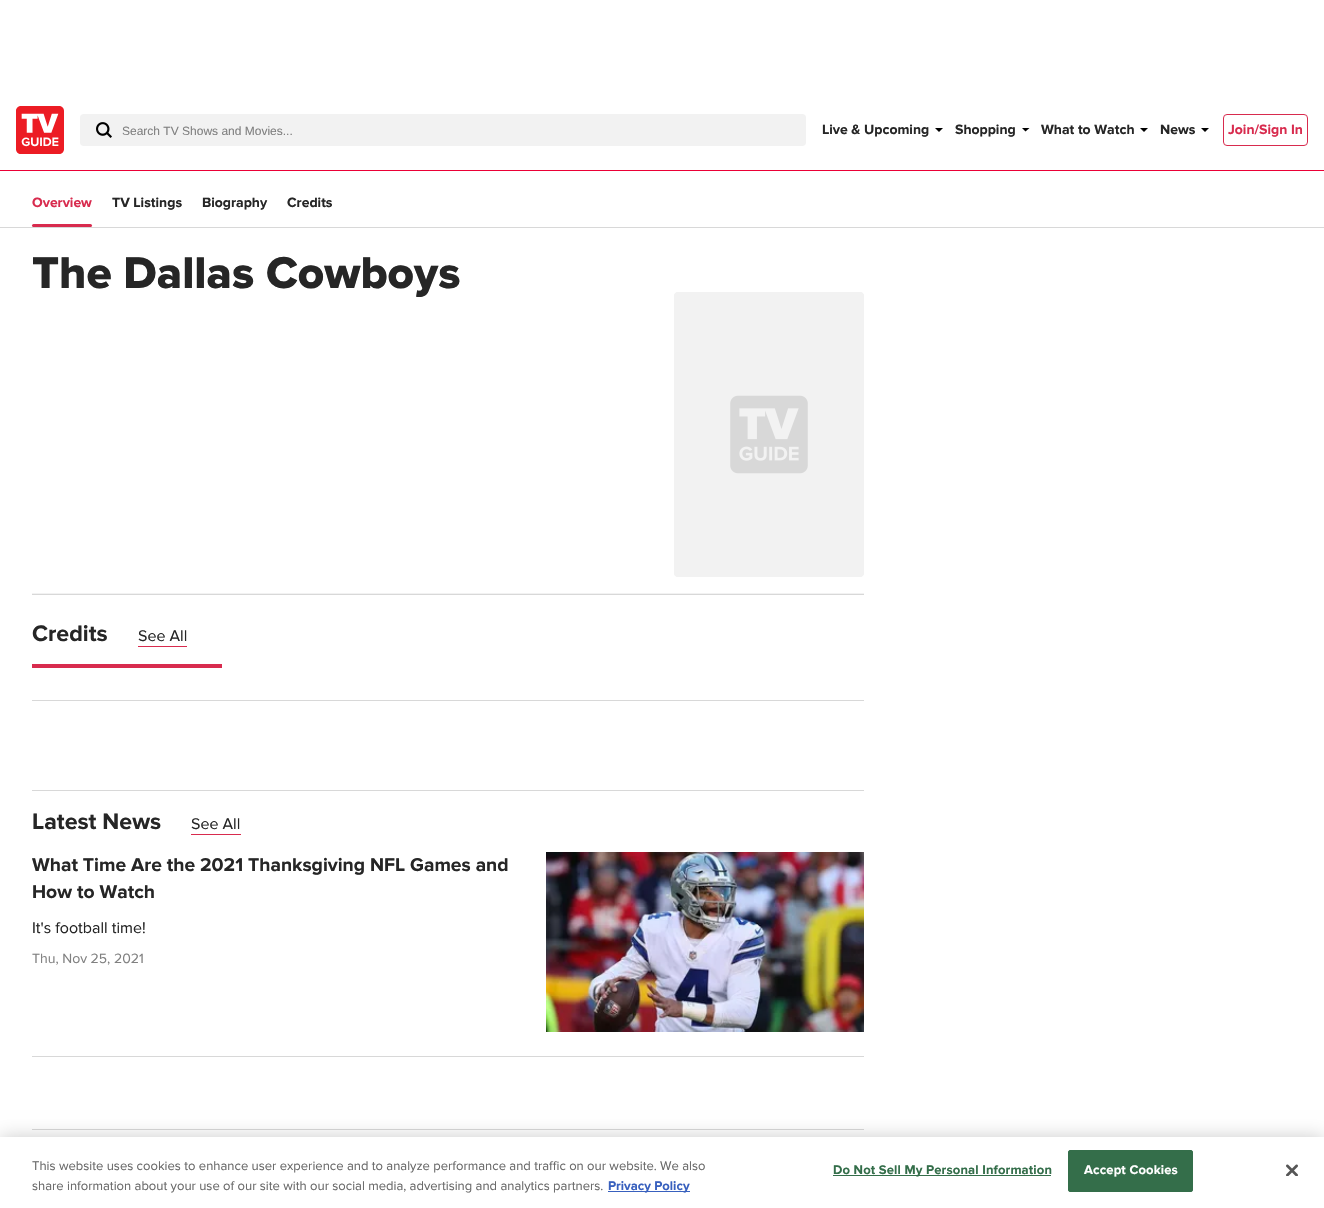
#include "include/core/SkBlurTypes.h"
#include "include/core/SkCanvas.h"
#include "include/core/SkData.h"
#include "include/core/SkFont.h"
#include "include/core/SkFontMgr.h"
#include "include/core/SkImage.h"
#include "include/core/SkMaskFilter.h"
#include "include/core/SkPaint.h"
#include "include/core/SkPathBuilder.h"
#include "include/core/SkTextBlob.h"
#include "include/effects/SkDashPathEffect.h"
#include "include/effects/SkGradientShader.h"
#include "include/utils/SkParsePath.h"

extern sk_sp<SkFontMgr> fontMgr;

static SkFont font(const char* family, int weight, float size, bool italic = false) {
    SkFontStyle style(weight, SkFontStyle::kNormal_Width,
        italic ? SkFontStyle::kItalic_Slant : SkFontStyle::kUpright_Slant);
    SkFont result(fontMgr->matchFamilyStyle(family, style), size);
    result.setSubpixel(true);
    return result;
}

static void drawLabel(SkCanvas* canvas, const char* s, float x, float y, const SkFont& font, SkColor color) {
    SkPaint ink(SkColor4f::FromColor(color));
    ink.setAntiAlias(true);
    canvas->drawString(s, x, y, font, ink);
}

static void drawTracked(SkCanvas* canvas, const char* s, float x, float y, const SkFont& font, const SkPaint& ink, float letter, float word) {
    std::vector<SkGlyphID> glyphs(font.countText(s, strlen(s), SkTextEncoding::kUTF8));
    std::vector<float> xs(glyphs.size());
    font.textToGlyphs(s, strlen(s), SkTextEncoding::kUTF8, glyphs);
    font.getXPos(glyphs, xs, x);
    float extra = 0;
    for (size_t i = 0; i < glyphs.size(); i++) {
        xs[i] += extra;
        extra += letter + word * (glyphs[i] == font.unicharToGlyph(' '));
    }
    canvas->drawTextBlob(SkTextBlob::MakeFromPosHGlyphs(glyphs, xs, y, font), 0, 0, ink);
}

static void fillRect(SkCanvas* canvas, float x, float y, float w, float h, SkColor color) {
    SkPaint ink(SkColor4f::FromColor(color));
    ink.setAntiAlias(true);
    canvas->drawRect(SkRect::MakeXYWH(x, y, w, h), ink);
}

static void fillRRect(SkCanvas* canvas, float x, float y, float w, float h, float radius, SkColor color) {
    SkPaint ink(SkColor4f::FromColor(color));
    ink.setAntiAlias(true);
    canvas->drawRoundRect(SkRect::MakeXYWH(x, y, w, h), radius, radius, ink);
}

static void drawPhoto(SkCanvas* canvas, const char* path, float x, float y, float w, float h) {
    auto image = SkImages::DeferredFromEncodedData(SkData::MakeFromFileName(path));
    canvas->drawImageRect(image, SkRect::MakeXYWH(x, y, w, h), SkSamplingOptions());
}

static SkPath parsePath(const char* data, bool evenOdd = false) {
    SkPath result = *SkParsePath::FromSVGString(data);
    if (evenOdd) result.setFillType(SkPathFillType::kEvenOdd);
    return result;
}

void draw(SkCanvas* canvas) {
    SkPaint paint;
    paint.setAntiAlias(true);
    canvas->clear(0xFFFFFFFF);
    fillRect(canvas, 0, 170, 1324, 1, 0xFFEB0036);
    drawPhoto(canvas, "assets/img1.png", 16, 106, 48, 48);
    fillRRect(canvas, 80, 114, 726, 32, 4, 0xFFF2F2F2);
    drawPhoto(canvas, "assets/img2.png", 96, 122, 16, 16);
    SkFont font1 = font("Liberation Sans", 400, 12);
    drawLabel(canvas, "Search TV Shows and Movies...", 122, 135, font1, 0xFF808080);
    SkFont font2 = font("Proxima Nova", 700, 14);
    drawLabel(canvas, "Live & Upcoming", 822, 134, font2, 0xFF262626);
    paint.setColor(0xFF000000);
    canvas->drawPath(parsePath("M935 128L939 132L943 128Z", true), paint);
    drawLabel(canvas, "Shopping", 955, 134, font2, 0xFF262626);
    canvas->drawPath(parsePath("M1029.5 128H1022L1025.5 131.5Z"), paint);
    drawLabel(canvas, "What to Watch", 1041, 134, font2, 0xFF262626);
    canvas->drawPath(parsePath("M1140 128L1144 132L1148 128Z", true), paint);
    drawLabel(canvas, "News", 1160, 134, font2, 0xFF262626);
    canvas->drawPath(parsePath("M1201 128L1205 132L1209 128Z", true), paint);
    paint.setStroke(true);
    paint.setStrokeWidth(1);
    paint.setColor(0xFFD82B4E);
    canvas->drawRoundRect(SkRect::MakeXYWH(1223.5f, 114.5f, 84, 31), 3.5f, 3.5f, paint);
    drawLabel(canvas, "Join/Sign In", 1228, 134, font2, 0xFFD82B4E);
    fillRect(canvas, 0, 227, 1324, 1, 0xFFD8D8D8);
    drawLabel(canvas, "Overview", 32, 207, font2, 0xFFD82B4E);
    fillRRect(canvas, 32, 224, 60, 3, 1.5f, 0xFFD82B4E);
    drawLabel(canvas, "TV Listings", 112, 207, font2, 0xFF262626);
    drawLabel(canvas, "Biography", 202, 207, font2, 0xFF262626);
    drawLabel(canvas, "Credits", 287, 207, font2, 0xFF262626);
    fillRect(canvas, 32, 593, 832, 1, 0xFFF2F2F2);
    SkFont font3 = font("Proxima Nova", 800, 46);
    drawLabel(canvas, "The Dallas Cowboys", 32, 288, font3, 0xFF262626);
    drawPhoto(canvas, "assets/img3.png", 674, 292, 190, 285);
    fillRect(canvas, 32, 594, 832, 1, 0xFFD8D8D8);
    SkFont font4 = font("Proxima Nova", 700, 23.25f);
    drawLabel(canvas, "Credits", 32, 641, font4, 0xFF262626);
    SkFont font5 = font("Proxima Nova", 400, 16);
    drawLabel(canvas, "See All", 138, 641, font5, 0xFF262626);
    fillRect(canvas, 138, 646, 49, 1, 0xFFD82B4E);
    fillRect(canvas, 32, 700, 832, 1, 0xFFD8D8D8);
    fillRect(canvas, 32, 664, 190, 4, 0xFFD82B4E);
    fillRect(canvas, 32, 790, 832, 1, 0xFFD8D8D8);
    drawLabel(canvas, "Latest News", 32, 829, font4, 0xFF262626);
    drawLabel(canvas, "See All", 191, 829, font5, 0xFF262626);
    fillRect(canvas, 191, 834, 50, 1, 0xFFD82B4E);
    fillRect(canvas, 32, 1056, 832, 1, 0xFFD8D8D8);
    SkFont font6 = font("Proxima Nova", 700, 19.3f);
    drawLabel(canvas, "What Time Are the 2021 Thanksgiving NFL Games and", 32, 871, font6, 0xFF262626);
    drawLabel(canvas, "How to Watch", 32, 898, font6, 0xFF262626);
    drawLabel(canvas, "It's football time!", 32, 933, font5, 0xFF262626);
    SkFont font7 = font("Proxima Nova", 400, 14);
    drawLabel(canvas, "Thu, Nov 25, 2021", 32, 963, font7, 0xFF808080);
    drawPhoto(canvas, "assets/img4.png", 546, 852, 318, 180);
    fillRect(canvas, 32, 1129, 832, 1, 0xFFD8D8D8);
    paint.setStroke(false);
    paint.setColor(0x33000000);
    paint.setMaskFilter(SkMaskFilter::MakeBlur(kNormal_SkBlurStyle, 9));
    canvas->drawRect(SkRect::MakeXYWH(0, 1137, 1324, 71), paint);
    paint.setMaskFilter(nullptr);
    fillRect(canvas, 0, 1137, 1324, 71, 0xFFFFFFFF);
    SkFont font8 = font("Proxima Nova", 400, 13);
    drawLabel(canvas, "This website uses cookies to enhance user experience and to analyze performance and traffic on our website. We also", 32, 1170, font8, 0xFF696969);
    drawLabel(canvas, "share information about your use of our site with our social media, advertising and analytics partners.", 32, 1190, font8, 0xFF696969);
    fillRect(canvas, 608, 1191, 82, 1, 0xFF3860BE);
    SkFont font9 = font("Proxima Nova", 700, 13);
    drawLabel(canvas, "Privacy Policy", 608, 1190, font9, 0xFF3860BE);
    fillRect(canvas, 833, 1175, 218, 1, 0xFF346E4A);
    paint.setColor(0xFF346E4A);
    drawTracked(canvas, "Do Not Sell My Personal Information", 833, 1174, font9, paint, 0.15f, 0);
    canvas->drawRoundRect(SkRect::MakeXYWH(1068.5f, 1150.5f, 124, 41), 1.5f, 1.5f, paint);
    paint.setStroke(true);
    canvas->drawRoundRect(SkRect::MakeXYWH(1068.5f, 1150.5f, 124, 41), 1.5f, 1.5f, paint);
    paint.setStroke(false);
    paint.setColor(0xFFFFFFFF);
    drawTracked(canvas, "Accept Cookies", 1084, 1174, font9, paint, 0.15f, 0);
    drawPhoto(canvas, "assets/img5.png", 1286, 1164, 12, 12);
}
